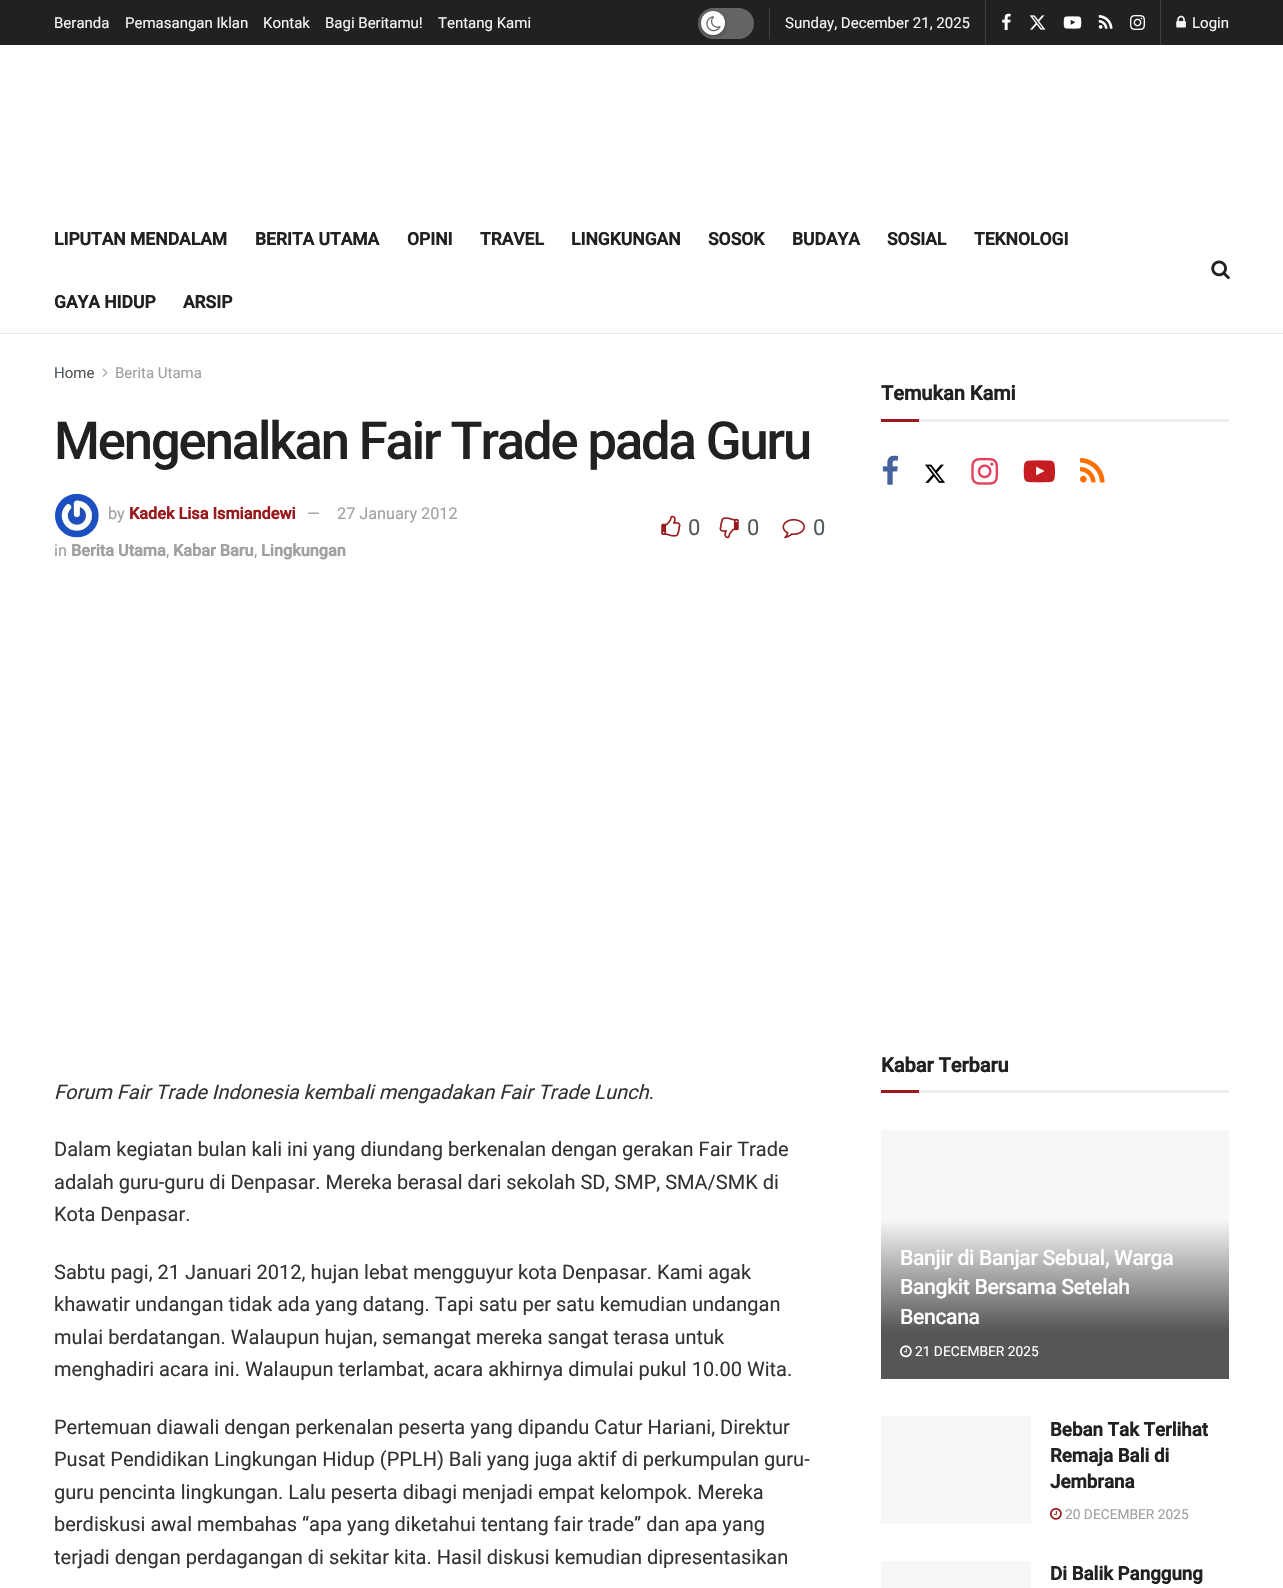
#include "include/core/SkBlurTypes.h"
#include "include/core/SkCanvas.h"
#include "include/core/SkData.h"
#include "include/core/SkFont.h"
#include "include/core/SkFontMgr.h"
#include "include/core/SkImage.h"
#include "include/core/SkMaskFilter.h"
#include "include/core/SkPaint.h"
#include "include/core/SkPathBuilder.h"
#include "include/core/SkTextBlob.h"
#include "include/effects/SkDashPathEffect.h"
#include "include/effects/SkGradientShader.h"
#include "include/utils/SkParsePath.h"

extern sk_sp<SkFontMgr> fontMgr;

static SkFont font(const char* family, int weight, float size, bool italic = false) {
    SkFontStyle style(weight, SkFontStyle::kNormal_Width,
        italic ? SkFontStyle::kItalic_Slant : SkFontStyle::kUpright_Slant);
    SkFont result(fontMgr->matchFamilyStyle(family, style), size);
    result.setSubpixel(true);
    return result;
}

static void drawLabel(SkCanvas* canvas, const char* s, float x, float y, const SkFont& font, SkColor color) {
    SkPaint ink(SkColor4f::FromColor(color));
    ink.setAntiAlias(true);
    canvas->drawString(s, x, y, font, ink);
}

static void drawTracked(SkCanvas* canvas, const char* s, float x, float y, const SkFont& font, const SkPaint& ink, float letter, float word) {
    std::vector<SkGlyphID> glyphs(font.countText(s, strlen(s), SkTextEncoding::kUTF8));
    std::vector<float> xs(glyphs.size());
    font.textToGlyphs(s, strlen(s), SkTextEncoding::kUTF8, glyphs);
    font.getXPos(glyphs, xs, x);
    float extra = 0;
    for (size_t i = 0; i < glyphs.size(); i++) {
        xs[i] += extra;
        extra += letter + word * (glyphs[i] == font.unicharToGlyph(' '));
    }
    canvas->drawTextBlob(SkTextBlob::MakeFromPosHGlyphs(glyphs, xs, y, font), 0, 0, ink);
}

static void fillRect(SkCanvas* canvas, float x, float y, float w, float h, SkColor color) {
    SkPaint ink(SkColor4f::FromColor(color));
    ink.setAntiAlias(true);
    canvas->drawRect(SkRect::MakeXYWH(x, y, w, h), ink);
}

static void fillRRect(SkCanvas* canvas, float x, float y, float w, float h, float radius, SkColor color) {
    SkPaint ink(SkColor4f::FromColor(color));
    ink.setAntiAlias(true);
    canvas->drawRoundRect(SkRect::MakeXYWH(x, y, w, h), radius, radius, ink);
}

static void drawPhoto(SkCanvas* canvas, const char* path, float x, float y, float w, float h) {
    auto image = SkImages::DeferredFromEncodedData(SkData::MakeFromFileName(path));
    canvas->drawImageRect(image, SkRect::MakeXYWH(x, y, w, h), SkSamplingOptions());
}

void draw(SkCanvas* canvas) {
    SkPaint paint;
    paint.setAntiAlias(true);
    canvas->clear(0xFFFFFFFF);
    fillRect(canvas, 0, 0, 1283, 45, 0xFF212121);
    fillRect(canvas, 1160, 0, 1, 45, 0xFF424242);
    SkFont font1 = font("Roboto", 400, 15);
    drawLabel(canvas, "Beranda", 54, 28, font1, 0xFFF5F5F5);
    drawLabel(canvas, "Pemasangan Iklan", 125, 28, font1, 0xFFF5F5F5);
    drawLabel(canvas, "Kontak", 263, 28, font1, 0xFFF5F5F5);
    drawLabel(canvas, "Bagi Beritamu!", 325, 28, font1, 0xFFF5F5F5);
    drawLabel(canvas, "Tentang Kami", 438, 28, font1, 0xFFF5F5F5);
    fillRect(canvas, 769, 8, 1, 31, 0xFF424242);
    fillRRect(canvas, 698, 8, 56, 31, 15.5f, 0xFF646464);
    paint.setColor(0x4D000000);
    paint.setMaskFilter(SkMaskFilter::MakeBlur(kNormal_SkBlurStyle, 2));
    canvas->drawRoundRect(SkRect::MakeXYWH(701, 13, 24, 23), 11.5f, 11.5f, paint);
    paint.setMaskFilter(nullptr);
    paint.setColor(0xFFFFFFFF);
    canvas->drawCircle(713, 23, 12, paint);
    drawPhoto(canvas, "assets/img1.png", 706, 16, 15, 16);
    fillRect(canvas, 985, 0, 1, 45, 0xFF424242);
    drawLabel(canvas, "Sunday, December 21, 2025", 785, 28, font1, 0xFFF5F5F5);
    drawPhoto(canvas, "assets/img2.png", 1002, 13, 9, 17);
    drawPhoto(canvas, "assets/img3.png", 1029, 15, 17, 15);
    drawPhoto(canvas, "assets/img4.png", 1063, 16, 19, 13);
    drawPhoto(canvas, "assets/img5.png", 1098, 15, 15, 14);
    drawPhoto(canvas, "assets/img6.png", 1130, 15, 15, 15);
    drawPhoto(canvas, "assets/img7.png", 1176, 15, 10, 13);
    drawLabel(canvas, "Login", 1192, 28, font1, 0xFFF5F5F5);
    fillRect(canvas, 0, 333, 1283, 1, 0xFFE8E8E8);
    SkFont font2 = font("Roboto", 700, 17.5f);
    drawLabel(canvas, "LIPUTAN MENDALAM", 54, 245, font2, 0xFF212121);
    drawLabel(canvas, "BERITA UTAMA", 255, 245, font2, 0xFF212121);
    drawLabel(canvas, "OPINI", 407, 245, font2, 0xFF212121);
    drawLabel(canvas, "TRAVEL", 480, 245, font2, 0xFF212121);
    drawLabel(canvas, "LINGKUNGAN", 571, 245, font2, 0xFF212121);
    drawLabel(canvas, "SOSOK", 708, 245, font2, 0xFF212121);
    drawLabel(canvas, "BUDAYA", 792, 245, font2, 0xFF212121);
    drawLabel(canvas, "SOSIAL", 887, 245, font2, 0xFF212121);
    drawLabel(canvas, "TEKNOLOGI", 974, 245, font2, 0xFF212121);
    drawLabel(canvas, "GAYA HIDUP", 54, 308, font2, 0xFF212121);
    drawLabel(canvas, "ARSIP", 183, 308, font2, 0xFF212121);
    drawPhoto(canvas, "assets/img8.png", 1211, 260, 19, 20);
    drawLabel(canvas, "Home", 54, 378, font1, 0xFF53585C);
    drawPhoto(canvas, "assets/img9.png", 102, 368, 6, 9);
    drawLabel(canvas, "Berita Utama", 115, 378, font1, 0xFFA0A0A0);
    SkFont font3 = font("Roboto", 500, 52.5f);
    paint.setColor(0xFF212121);
    drawTracked(canvas, "Mengenalkan Fair Trade pada Guru", 54, 459, font3, paint, -2.1f, 0);
    drawPhoto(canvas, "assets/img10.png", 55, 493, 44, 45);
    SkFont font4 = font("Roboto", 400, 16.25f);
    drawLabel(canvas, "by", 108, 519, font4, 0xFFA0A0A0);
    SkFont font5 = font("Roboto", 700, 16.25f);
    drawLabel(canvas, "Kadek Lisa Ismiandewi", 129, 519, font5, 0xFF991B1E);
    drawLabel(canvas, "—", 307, 519, font4, 0xFFA0A0A0);
    drawLabel(canvas, "27 January 2012", 337, 519, font4, 0xFFA0A0A0);
    drawLabel(canvas, "in", 54, 556, font4, 0xFFA0A0A0);
    drawLabel(canvas, "Berita Utama", 71, 556, font5, 0xFFA0A0A0);
    drawLabel(canvas, ",", 166, 556, font4, 0xFFA0A0A0);
    drawLabel(canvas, "Kabar Baru", 173, 556, font5, 0xFFA0A0A0);
    drawLabel(canvas, ",", 254, 556, font4, 0xFFA0A0A0);
    drawLabel(canvas, "Lingkungan", 261, 556, font5, 0xFFA0A0A0);
    drawPhoto(canvas, "assets/img11.png", 661, 515, 20, 22);
    SkFont font6 = font("Roboto", 400, 22);
    drawLabel(canvas, "0", 688, 535, font6, 0xFF53585C);
    drawPhoto(canvas, "assets/img12.png", 719, 517, 20, 22);
    drawLabel(canvas, "0", 747, 535, font6, 0xFF53585C);
    drawPhoto(canvas, "assets/img13.png", 782, 518, 23, 21);
    drawLabel(canvas, "0", 813, 535, font6, 0xFF53585C);
    SkFont font7 = font("Roboto", 400, 20, true);
    drawLabel(canvas, "Forum Fair Trade Indonesia kembali mengadakan Fair Trade Lunch.", 54, 1099, font7, 0xFF333333);
    SkFont font8 = font("Roboto", 400, 20);
    drawLabel(canvas, "Dalam kegiatan bulan kali ini yang diundang berkenalan dengan gerakan Fair Trade", 54, 1156, font8, 0xFF333333);
    drawLabel(canvas, "adalah guru-guru di Denpasar. Mereka berasal dari sekolah SD, SMP, SMA/SMK di", 54, 1189, font8, 0xFF333333);
    drawLabel(canvas, "Kota Denpasar.", 54, 1221, font8, 0xFF333333);
    drawLabel(canvas, "Sabtu pagi, 21 Januari 2012, hujan lebat mengguyur kota Denpasar. Kami agak", 54, 1279, font8, 0xFF333333);
    drawLabel(canvas, "khawatir undangan tidak ada yang datang. Tapi satu per satu kemudian undangan", 54, 1311, font8, 0xFF333333);
    drawLabel(canvas, "mulai berdatangan. Walaupun hujan, semangat mereka sangat terasa untuk", 54, 1344, font8, 0xFF333333);
    drawLabel(canvas, "menghadiri acara ini. Walaupun terlambat, acara akhirnya dimulai pukul 10.00 Wita.", 54, 1376, font8, 0xFF333333);
    drawLabel(canvas, "Pertemuan diawali dengan perkenalan peserta yang dipandu Catur Hariani, Direktur", 54, 1434, font8, 0xFF333333);
    drawLabel(canvas, "Pusat Pendidikan Lingkungan Hidup (PPLH) Bali yang juga aktif di perkumpulan guru-", 54, 1466, font8, 0xFF333333);
    drawLabel(canvas, "guru pencinta lingkungan. Lalu peserta dibagi menjadi empat kelompok. Mereka", 54, 1499, font8, 0xFF333333);
    drawLabel(canvas, "berdiskusi awal membahas “apa yang diketahui tentang fair trade” dan apa yang", 54, 1531, font8, 0xFF333333);
    drawLabel(canvas, "terjadi dengan perdagangan di sekitar kita. Hasil diskusi kemudian dipresentasikan", 54, 1564, font8, 0xFF333333);
    fillRect(canvas, 919, 419, 310, 3, 0xFFEEEEEE);
    SkFont font9 = font("Roboto", 700, 20);
    drawLabel(canvas, "Temukan Kami", 881, 400, font9, 0xFF212121);
    fillRect(canvas, 881, 419, 38, 3, 0xFF991B1E);
    drawPhoto(canvas, "assets/img14.png", 882, 455, 16, 30);
    drawPhoto(canvas, "assets/img15.png", 925, 464, 20, 19);
    drawPhoto(canvas, "assets/img16.png", 971, 457, 28, 28);
    drawPhoto(canvas, "assets/img17.png", 1023, 460, 32, 23);
    drawPhoto(canvas, "assets/img18.png", 1080, 457, 25, 26);
    fillRect(canvas, 919, 1090, 310, 3, 0xFFEEEEEE);
    drawLabel(canvas, "Kabar Terbaru", 881, 1072, font9, 0xFF212121);
    fillRect(canvas, 881, 1090, 38, 3, 0xFF991B1E);
    fillRect(canvas, 881, 1130, 348, 89, 0xFFF7F7F7);
    {
        const SkColor colors[] = {0xFFF7F7F7, 0xFF565656};
        const float stops[] = {0, 0.7f};
        const SkPoint ends[] = {{1055, 1219}, {1055, 1379}};
        paint.setShader(SkGradientShader::MakeLinear(ends, colors, stops, 2, SkTileMode::kClamp));
        paint.setAlpha(255);
    }
    canvas->drawRect(SkRect::MakeXYWH(881, 1219, 348, 160), paint);
    SkFont font10 = font("Roboto", 500, 21.25f);
    paint.setShader(nullptr);
    paint.setColor(0xFFFFFFFF);
    drawTracked(canvas, "Banjir di Banjar Sebual, Warga", 900, 1265, font10, paint, -0.4f, 0);
    drawTracked(canvas, "Bangkit Bersama Setelah", 900, 1294, font10, paint, -0.4f, 0);
    drawTracked(canvas, "Bencana", 900, 1324, font10, paint, -0.4f, 0);
    drawPhoto(canvas, "assets/img19.png", 900, 1345, 12, 13);
    SkFont font11 = font("Roboto", 400, 13.75f);
    drawLabel(canvas, "21 DECEMBER 2025", 915, 1356, font11, 0xFFFFFFFF);
    fillRect(canvas, 881, 1416, 150, 108, 0xFFF7F7F7);
    SkFont font12 = font("Roboto", 700, 18.75f);
    drawLabel(canvas, "Beban Tak Terlihat", 1050, 1436, font12, 0xFF212121);
    drawLabel(canvas, "Remaja Bali di", 1050, 1462, font12, 0xFF212121);
    drawLabel(canvas, "Jembrana", 1050, 1488, font12, 0xFF212121);
    drawPhoto(canvas, "assets/img20.png", 1050, 1507, 12, 13);
    drawLabel(canvas, "20 DECEMBER 2025", 1065, 1519, font11, 0xFFA0A0A0);
    fillRect(canvas, 881, 1561, 150, 27, 0xFFF7F7F7);
    drawLabel(canvas, "Di Balik Panggung", 1050, 1580, font12, 0xFF212121);
}
